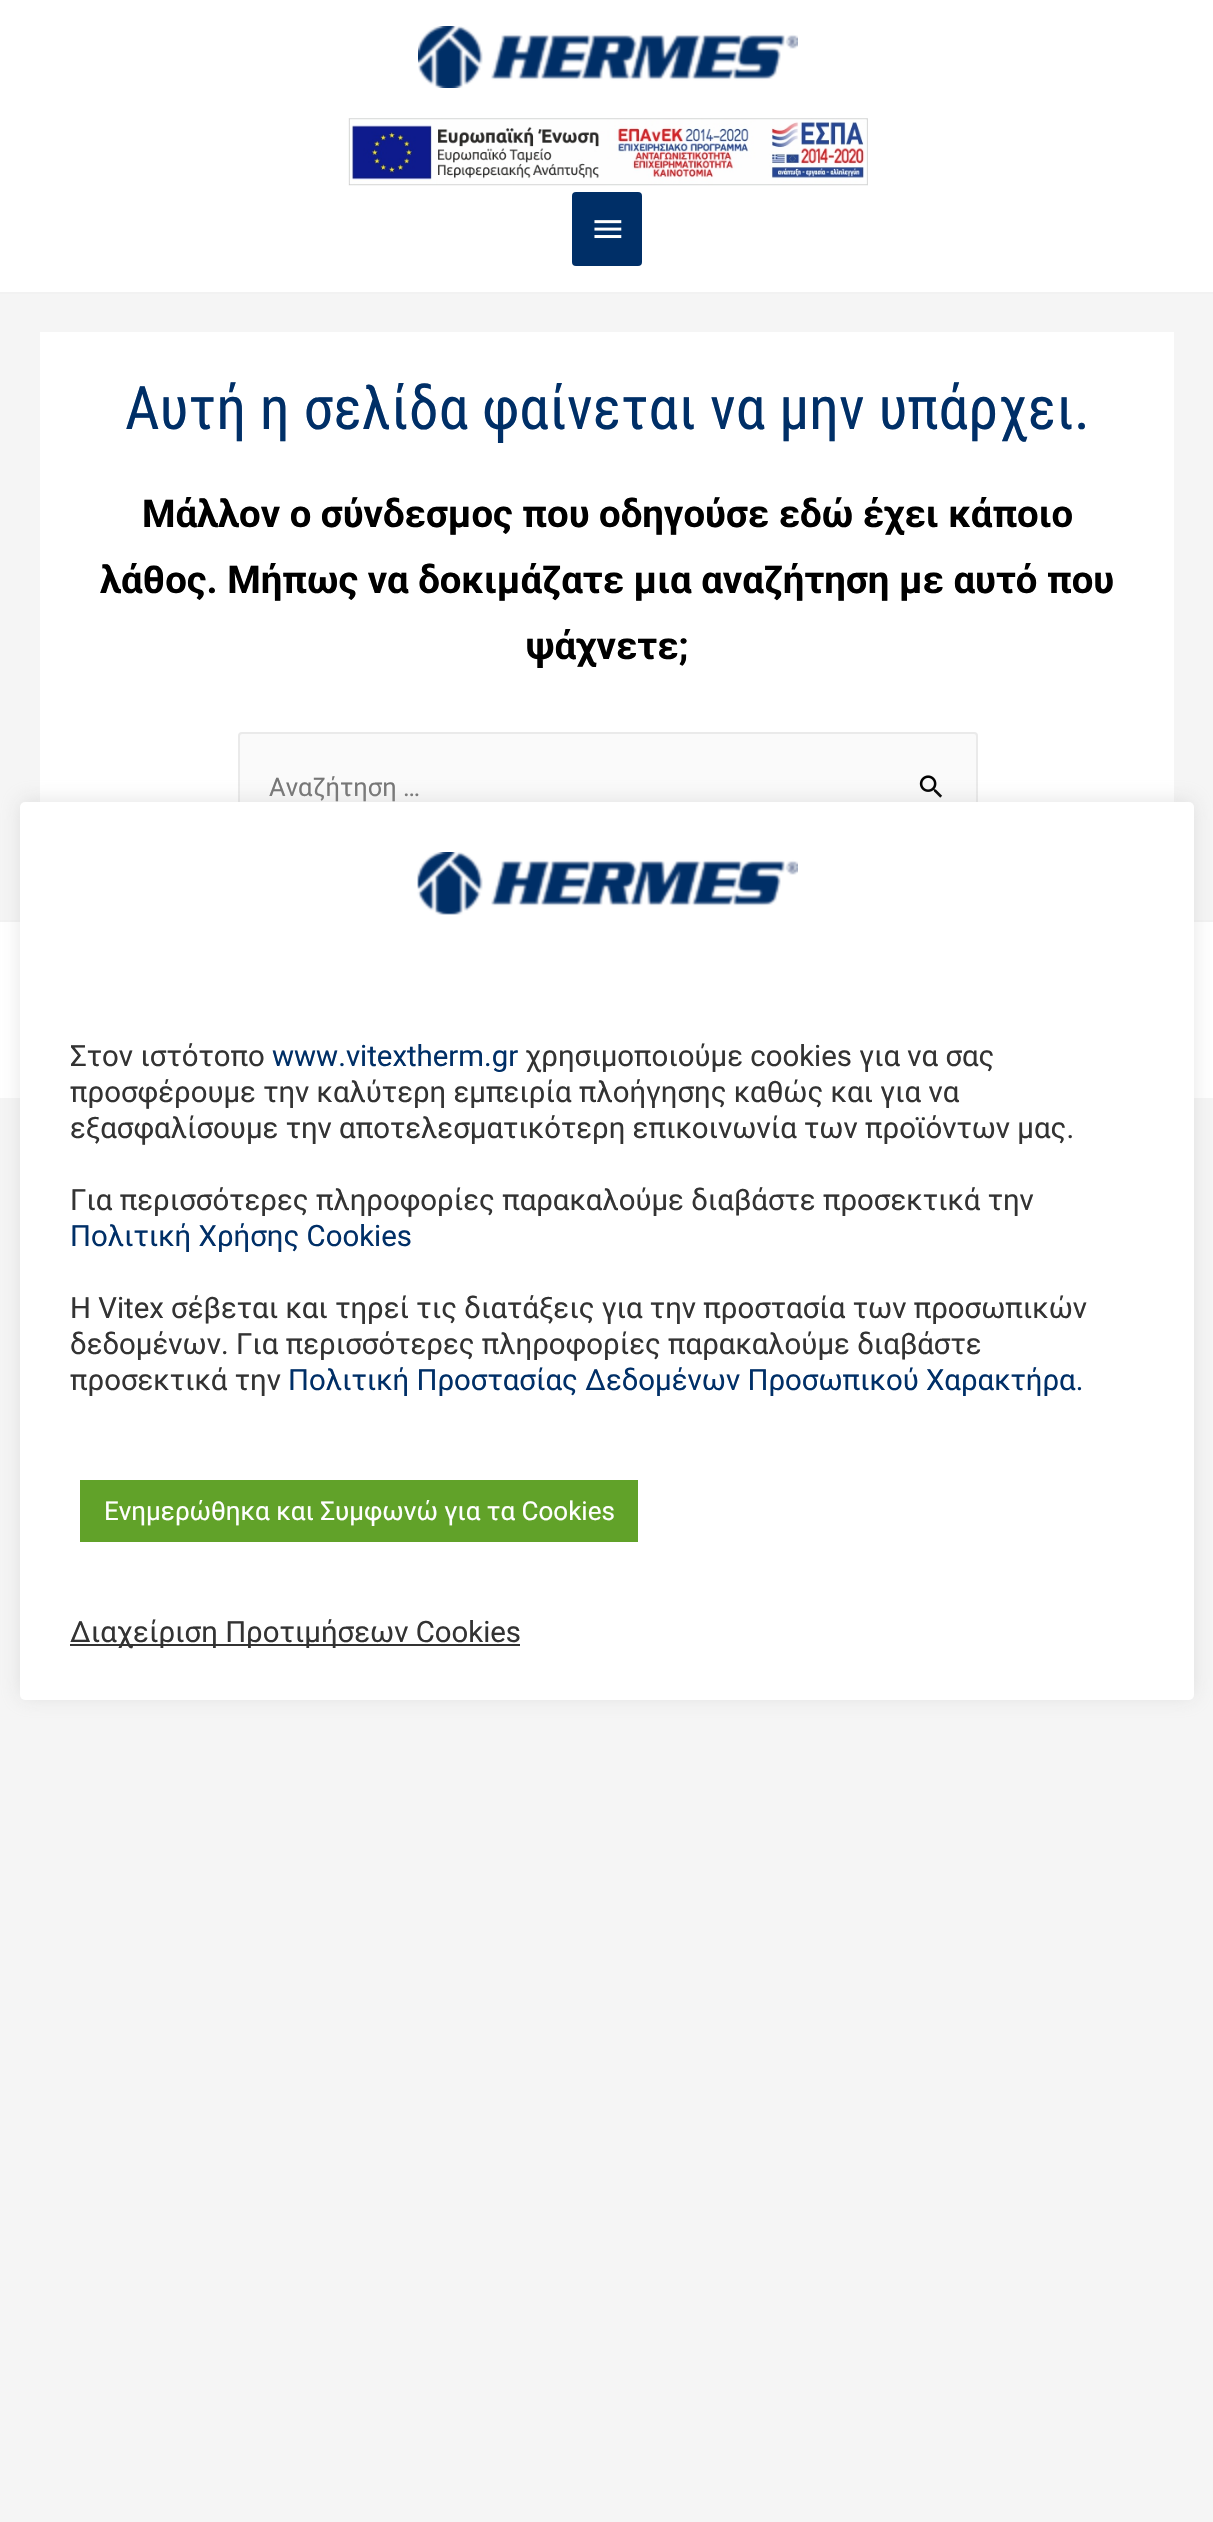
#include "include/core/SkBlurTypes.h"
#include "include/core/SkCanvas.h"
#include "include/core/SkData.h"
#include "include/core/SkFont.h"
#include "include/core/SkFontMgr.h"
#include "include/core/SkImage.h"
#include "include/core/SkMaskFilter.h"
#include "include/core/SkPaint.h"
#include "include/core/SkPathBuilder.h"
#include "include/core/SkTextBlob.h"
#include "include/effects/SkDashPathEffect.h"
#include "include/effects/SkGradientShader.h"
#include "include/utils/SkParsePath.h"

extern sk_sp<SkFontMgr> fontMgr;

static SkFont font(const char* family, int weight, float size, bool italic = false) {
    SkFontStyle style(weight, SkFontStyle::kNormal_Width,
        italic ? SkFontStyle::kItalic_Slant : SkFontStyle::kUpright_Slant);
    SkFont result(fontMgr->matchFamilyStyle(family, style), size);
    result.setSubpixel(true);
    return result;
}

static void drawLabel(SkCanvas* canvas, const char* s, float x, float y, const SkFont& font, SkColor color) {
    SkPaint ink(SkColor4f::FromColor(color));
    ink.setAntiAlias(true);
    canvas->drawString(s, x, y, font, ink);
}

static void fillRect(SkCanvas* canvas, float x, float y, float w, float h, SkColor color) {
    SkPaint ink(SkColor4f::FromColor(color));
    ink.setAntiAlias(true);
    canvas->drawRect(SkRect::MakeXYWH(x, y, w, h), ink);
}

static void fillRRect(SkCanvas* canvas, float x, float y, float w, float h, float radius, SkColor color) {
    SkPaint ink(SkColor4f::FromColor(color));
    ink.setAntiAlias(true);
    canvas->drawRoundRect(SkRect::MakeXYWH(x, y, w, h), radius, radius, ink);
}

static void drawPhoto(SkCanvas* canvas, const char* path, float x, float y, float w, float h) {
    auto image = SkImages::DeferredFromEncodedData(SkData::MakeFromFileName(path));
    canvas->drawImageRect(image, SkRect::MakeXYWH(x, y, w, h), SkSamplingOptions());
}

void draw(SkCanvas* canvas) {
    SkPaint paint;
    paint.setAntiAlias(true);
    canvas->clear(0xFFF5F5F5);
    fillRect(canvas, 0, 0, 1213, 292, 0xFFFFFFFF);
    fillRect(canvas, 0, 292, 1213, 2, 0xFFF2F2F2);
    drawPhoto(canvas, "assets/img1.png", 418, 26, 380, 62);
    drawPhoto(canvas, "assets/img2.png", 348, 118, 520, 68);
    fillRRect(canvas, 572, 192, 70, 74, 4, 0xFF002F67);
    drawPhoto(canvas, "assets/img3.png", 594, 220, 28, 19);
    fillRect(canvas, 40, 332, 1134, 470, 0xFFFFFFFF);
    SkFont font1 = font("Roboto Condensed", 400, 60);
    drawLabel(canvas, "Αυτή η σελίδα φαίνεται να μην υπάρχει.", 125, 429, font1, 0xFF002F67);
    SkFont font2 = font("Roboto", 700, 38.3f);
    drawLabel(canvas, "Μάλλον ο σύνδεσμος που οδηγούσε εδώ έχει κάποιο", 142, 527, font2, 0xFF000000);
    drawLabel(canvas, "λάθος. Μήπως να δοκιμάζατε μια αναζήτηση με αυτό που", 100, 593, font2, 0xFF000000);
    drawLabel(canvas, "ψάχνετε;", 526, 659, font2, 0xFF000000);
    paint.setColor(0xFFFAFAFA);
    canvas->drawRoundRect(SkRect::MakeXYWH(239, 733, 738, 110), 3, 3, paint);
    paint.setStroke(true);
    paint.setStrokeWidth(2);
    paint.setColor(0xFFEAEAEA);
    canvas->drawRoundRect(SkRect::MakeXYWH(239, 733, 738, 110), 3, 3, paint);
    SkFont font3 = font("Roboto", 400, 25.5f);
    drawLabel(canvas, "Αναζήτηση …", 269, 796, font3, 0xFF757575);
    drawPhoto(canvas, "assets/img4.png", 919, 775, 24, 23);
    fillRect(canvas, 0, 920, 1213, 2, 0xFFF2F2F2);
    fillRect(canvas, 0, 922, 1213, 176, 0xFFFFFFFF);
    paint.setStroke(false);
    paint.setColor(0x4DACABAB);
    paint.setMaskFilter(SkMaskFilter::MakeBlur(kNormal_SkBlurStyle, 10));
    canvas->drawRoundRect(SkRect::MakeXYWH(20, 800, 1174, 898), 5, 5, paint);
    paint.setMaskFilter(nullptr);
    fillRRect(canvas, 20, 802, 1174, 898, 5, 0xFFFFFFFF);
    drawPhoto(canvas, "assets/img5.png", 417, 852, 381, 63);
    SkFont font4 = font("Roboto", 400, 29.35f);
    drawLabel(canvas, "Στον ιστότοπο", 70, 1066, font4, 0xFF333333);
    drawLabel(canvas, "www.vitextherm.gr", 272, 1066, font4, 0xFF002F67);
    drawLabel(canvas, "χρησιμοποιούμε cookies για να σας", 525, 1066, font4, 0xFF333333);
    drawLabel(canvas, "προσφέρουμε την καλύτερη εμπειρία πλοήγησης καθώς και για να", 70, 1102, font4, 0xFF333333);
    drawLabel(canvas, "εξασφαλίσουμε την αποτελεσματικότερη επικοινωνία των προϊόντων μας.", 70, 1138, font4, 0xFF333333);
    drawLabel(canvas, "Για περισσότερες πληροφορίες παρακαλούμε διαβάστε προσεκτικά την", 70, 1210, font4, 0xFF333333);
    drawLabel(canvas, "Πολιτική Χρήσης Cookies", 70, 1246, font4, 0xFF002F67);
    drawLabel(canvas, "Η Vitex σέβεται και τηρεί τις διατάξεις για την προστασία των προσωπικών", 70, 1318, font4, 0xFF333333);
    drawLabel(canvas, "δεδομένων. Για περισσότερες πληροφορίες παρακαλούμε διαβάστε", 70, 1354, font4, 0xFF333333);
    drawLabel(canvas, "προσεκτικά την", 70, 1390, font4, 0xFF333333);
    drawLabel(canvas, "Πολιτική Προστασίας Δεδομένων Προσωπικού Χαρακτήρα.", 288, 1390, font4, 0xFF002F67);
    fillRect(canvas, 80, 1480, 558, 62, 0xFF61A229);
    SkFont font5 = font("Roboto", 400, 26);
    drawLabel(canvas, "Ενημερώθηκα και Συμφωνώ για τα Cookies", 104, 1520, font5, 0xFFFFFFFF);
    fillRect(canvas, 70, 1644, 450, 2, 0xFF333333);
    drawLabel(canvas, "Διαχείριση Προτιμήσεων Cookies", 70, 1642, font4, 0xFF333333);
}
